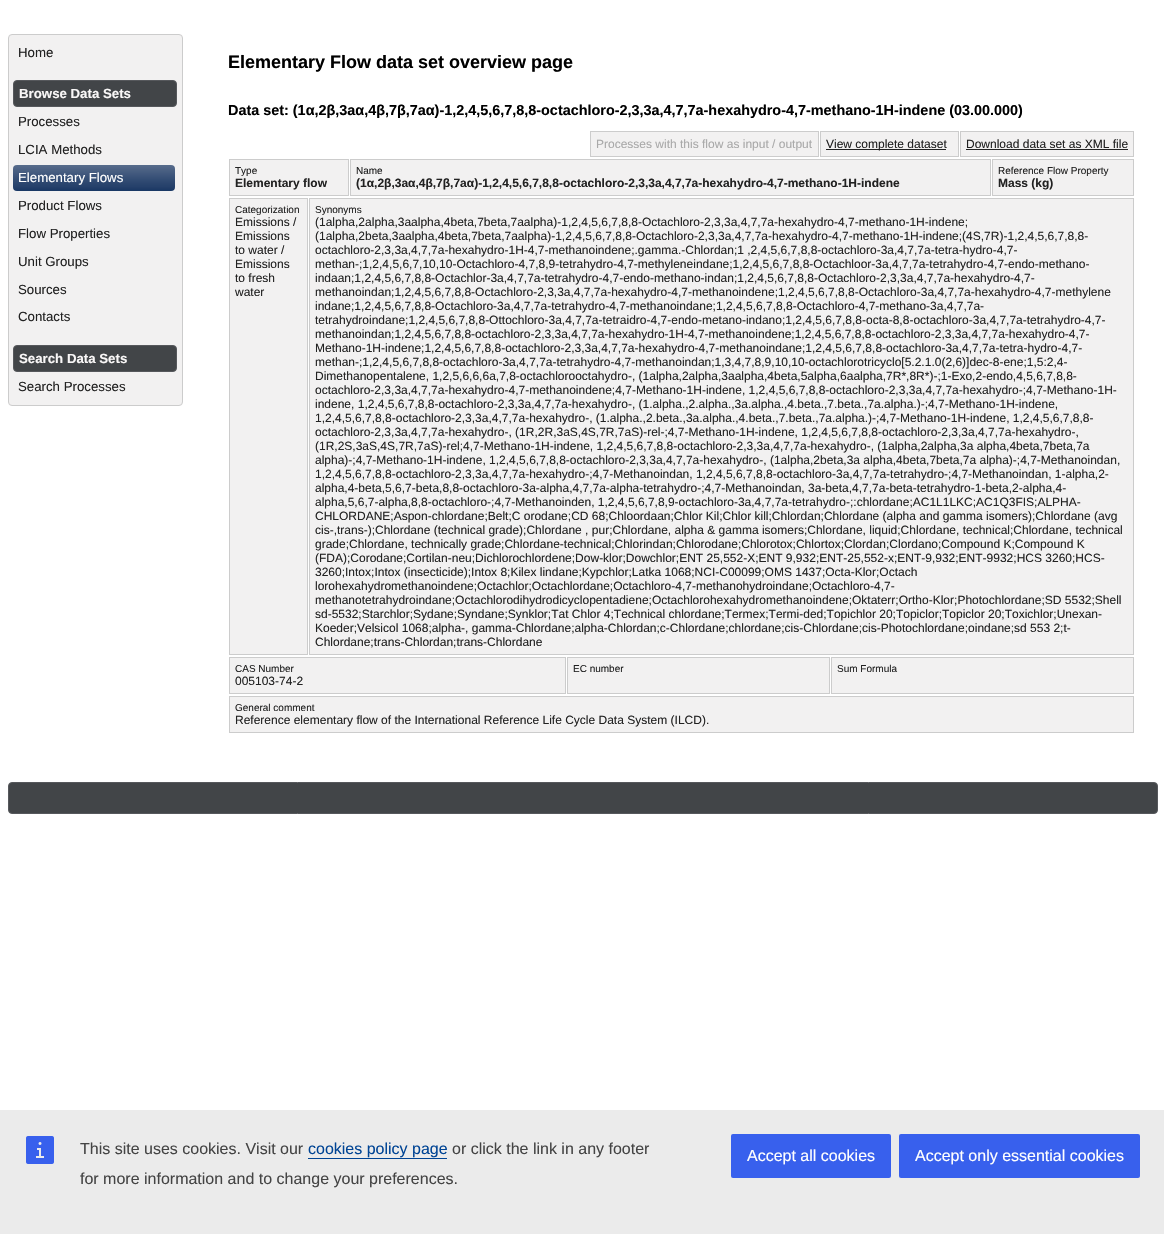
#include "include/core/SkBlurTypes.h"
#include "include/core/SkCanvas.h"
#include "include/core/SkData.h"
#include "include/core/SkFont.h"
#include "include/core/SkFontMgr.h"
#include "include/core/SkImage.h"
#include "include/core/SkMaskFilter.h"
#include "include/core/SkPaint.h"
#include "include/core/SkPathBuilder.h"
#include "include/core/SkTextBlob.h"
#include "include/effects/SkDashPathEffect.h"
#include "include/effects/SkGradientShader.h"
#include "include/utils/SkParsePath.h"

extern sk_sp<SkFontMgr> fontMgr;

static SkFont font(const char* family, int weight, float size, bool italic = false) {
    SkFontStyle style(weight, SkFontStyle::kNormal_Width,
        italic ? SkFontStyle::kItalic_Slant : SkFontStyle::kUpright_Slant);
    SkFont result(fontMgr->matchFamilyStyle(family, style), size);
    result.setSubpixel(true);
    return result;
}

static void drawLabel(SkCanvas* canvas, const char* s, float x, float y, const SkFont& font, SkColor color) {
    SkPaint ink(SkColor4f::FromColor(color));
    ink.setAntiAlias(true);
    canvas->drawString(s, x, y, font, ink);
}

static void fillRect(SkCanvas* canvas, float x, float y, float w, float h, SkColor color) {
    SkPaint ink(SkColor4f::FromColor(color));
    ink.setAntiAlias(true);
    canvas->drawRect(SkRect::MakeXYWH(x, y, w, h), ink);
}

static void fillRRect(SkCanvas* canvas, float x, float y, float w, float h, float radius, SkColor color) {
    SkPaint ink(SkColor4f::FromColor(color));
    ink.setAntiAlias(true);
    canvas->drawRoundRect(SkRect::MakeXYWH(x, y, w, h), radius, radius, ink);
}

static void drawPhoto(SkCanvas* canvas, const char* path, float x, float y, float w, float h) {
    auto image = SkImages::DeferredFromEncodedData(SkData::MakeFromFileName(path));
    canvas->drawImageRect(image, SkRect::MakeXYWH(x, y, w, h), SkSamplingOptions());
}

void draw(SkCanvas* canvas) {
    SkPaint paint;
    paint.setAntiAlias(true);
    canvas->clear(0xFFFFFFFF);
    paint.setColor(0xFFF2F1F1);
    canvas->drawRoundRect(SkRect::MakeXYWH(8.5f, 34.5f, 174, 371), 3.5f, 3.5f, paint);
    paint.setStroke(true);
    paint.setStrokeWidth(1);
    paint.setColor(0xFFCCCCCC);
    canvas->drawRoundRect(SkRect::MakeXYWH(8.5f, 34.5f, 174, 371), 3.5f, 3.5f, paint);
    SkFont font1 = font("Liberation Sans", 400, 13.25f);
    drawLabel(canvas, "Home", 18, 57, font1, 0xFF222222);
    paint.setStroke(false);
    paint.setColor(0xFF424548);
    canvas->drawRoundRect(SkRect::MakeXYWH(13.5f, 80.5f, 163, 26), 3.5f, 3.5f, paint);
    paint.setStroke(true);
    paint.setColor(0xFF56585C);
    canvas->drawRoundRect(SkRect::MakeXYWH(13.5f, 80.5f, 163, 26), 3.5f, 3.5f, paint);
    SkFont font2 = font("Liberation Sans", 700, 13.25f);
    drawLabel(canvas, "Browse Data Sets", 19, 98, font2, 0xFFF9F7F7);
    drawLabel(canvas, "Processes", 18, 126, font1, 0xFF222222);
    drawLabel(canvas, "LCIA Methods", 18, 154, font1, 0xFF222222);
    drawPhoto(canvas, "assets/img1.png", 13, 165, 162, 26);
    drawLabel(canvas, "Elementary Flows", 18, 182, font1, 0xFFFFFFFF);
    drawLabel(canvas, "Product Flows", 18, 210, font1, 0xFF222222);
    drawLabel(canvas, "Flow Properties", 18, 238, font1, 0xFF222222);
    drawLabel(canvas, "Unit Groups", 18, 266, font1, 0xFF222222);
    drawLabel(canvas, "Sources", 18, 294, font1, 0xFF222222);
    drawLabel(canvas, "Contacts", 18, 321, font1, 0xFF222222);
    paint.setStroke(false);
    paint.setColor(0xFF424548);
    canvas->drawRoundRect(SkRect::MakeXYWH(13.5f, 345.5f, 163, 26), 3.5f, 3.5f, paint);
    paint.setStroke(true);
    paint.setColor(0xFF56585C);
    canvas->drawRoundRect(SkRect::MakeXYWH(13.5f, 345.5f, 163, 26), 3.5f, 3.5f, paint);
    drawLabel(canvas, "Search Data Sets", 19, 363, font2, 0xFFF9F7F7);
    drawLabel(canvas, "Search Processes", 18, 391, font1, 0xFF222222);
    SkFont font3 = font("Liberation Sans", 700, 18);
    drawLabel(canvas, "Elementary Flow data set overview page", 228, 68, font3, 0xFF000000);
    SkFont font4 = font("Liberation Sans", 700, 14.4f);
    drawLabel(canvas, "Data set: (1α,2β,3aα,4β,7β,7aα)-1,2,4,5,6,7,8,8-octachloro-2,3,3a,4,7,7a-hexahydro-4,7-methano-1H-indene (03.00.000)", 228, 115, font4, 0xFF000000);
    paint.setStroke(false);
    paint.setColor(0xFFF2F1F1);
    canvas->drawRect(SkRect::MakeXYWH(590.5f, 131.5f, 228, 25), paint);
    paint.setStroke(true);
    paint.setColor(0xFFCCCCCC);
    canvas->drawRect(SkRect::MakeXYWH(590.5f, 131.5f, 228, 25), paint);
    SkFont font5 = font("Liberation Sans", 400, 12);
    drawLabel(canvas, "Processes with this flow as input / output", 596, 148, font5, 0xFFA9A9A9);
    paint.setStroke(false);
    paint.setColor(0xFFF2F1F1);
    canvas->drawRect(SkRect::MakeXYWH(820.5f, 131.5f, 138, 25), paint);
    paint.setStroke(true);
    paint.setColor(0xFFCCCCCC);
    canvas->drawRect(SkRect::MakeXYWH(820.5f, 131.5f, 138, 25), paint);
    fillRect(canvas, 826, 149, 120, 1, 0xFF222222);
    drawLabel(canvas, "View complete dataset", 826, 148, font5, 0xFF222222);
    paint.setStroke(false);
    paint.setColor(0xFFF2F1F1);
    canvas->drawRect(SkRect::MakeXYWH(960.5f, 131.5f, 173, 25), paint);
    paint.setStroke(true);
    paint.setColor(0xFFCCCCCC);
    canvas->drawRect(SkRect::MakeXYWH(960.5f, 131.5f, 173, 25), paint);
    drawLabel(canvas, "Download data set as XML file", 966, 148, font5, 0xFF222222);
    fillRect(canvas, 966, 149, 162, 1, 0xFF222222);
    paint.setStroke(false);
    paint.setColor(0xFFF2F1F1);
    canvas->drawRect(SkRect::MakeXYWH(229.5f, 159.5f, 119, 36), paint);
    paint.setStroke(true);
    paint.setColor(0xFFCCCCCC);
    canvas->drawRect(SkRect::MakeXYWH(229.5f, 159.5f, 119, 36), paint);
    SkFont font6 = font("Liberation Sans", 400, 10);
    drawLabel(canvas, "Type", 235, 174, font6, 0xFF222222);
    SkFont font7 = font("Liberation Sans", 700, 12);
    drawLabel(canvas, "Elementary flow", 235, 187, font7, 0xFF222222);
    paint.setStroke(false);
    paint.setColor(0xFFF2F1F1);
    canvas->drawRect(SkRect::MakeXYWH(350.5f, 159.5f, 640, 36), paint);
    paint.setStroke(true);
    paint.setColor(0xFFCCCCCC);
    canvas->drawRect(SkRect::MakeXYWH(350.5f, 159.5f, 640, 36), paint);
    drawLabel(canvas, "Name", 356, 174, font6, 0xFF222222);
    drawLabel(canvas, "(1α,2β,3aα,4β,7β,7aα)-1,2,4,5,6,7,8,8-octachloro-2,3,3a,4,7,7a-hexahydro-4,7-methano-1H-indene", 356, 187, font7, 0xFF222222);
    paint.setStroke(false);
    paint.setColor(0xFFF2F1F1);
    canvas->drawRect(SkRect::MakeXYWH(992.5f, 159.5f, 141, 36), paint);
    paint.setStroke(true);
    paint.setColor(0xFFCCCCCC);
    canvas->drawRect(SkRect::MakeXYWH(992.5f, 159.5f, 141, 36), paint);
    drawLabel(canvas, "Reference Flow Property", 998, 174, font6, 0xFF222222);
    drawLabel(canvas, "Mass (kg)", 998, 187, font7, 0xFF222222);
    paint.setStroke(false);
    paint.setColor(0xFFF2F1F1);
    canvas->drawRect(SkRect::MakeXYWH(229.5f, 198.5f, 78, 456), paint);
    paint.setStroke(true);
    paint.setColor(0xFFCCCCCC);
    canvas->drawRect(SkRect::MakeXYWH(229.5f, 198.5f, 78, 456), paint);
    drawLabel(canvas, "Categorization", 235, 213, font6, 0xFF222222);
    drawLabel(canvas, "Emissions /", 235, 226, font5, 0xFF222222);
    drawLabel(canvas, "Emissions", 235, 240, font5, 0xFF222222);
    drawLabel(canvas, "to water /", 235, 254, font5, 0xFF222222);
    drawLabel(canvas, "Emissions", 235, 268, font5, 0xFF222222);
    drawLabel(canvas, "to fresh", 235, 282, font5, 0xFF222222);
    drawLabel(canvas, "water", 235, 296, font5, 0xFF222222);
    paint.setStroke(false);
    paint.setColor(0xFFF2F1F1);
    canvas->drawRect(SkRect::MakeXYWH(309.5f, 198.5f, 824, 456), paint);
    paint.setStroke(true);
    paint.setColor(0xFFCCCCCC);
    canvas->drawRect(SkRect::MakeXYWH(309.5f, 198.5f, 824, 456), paint);
    drawLabel(canvas, "Synonyms", 315, 213, font6, 0xFF222222);
    drawLabel(canvas, "(1alpha,2alpha,3aalpha,4beta,7beta,7aalpha)-1,2,4,5,6,7,8,8-Octachloro-2,3,3a,4,7,7a-hexahydro-4,7-methano-1H-indene;", 315, 226, font5, 0xFF222222);
    drawLabel(canvas, "(1alpha,2beta,3aalpha,4beta,7beta,7aalpha)-1,2,4,5,6,7,8,8-Octachloro-2,3,3a,4,7,7a-hexahydro-4,7-methano-1H-indene;(4S,7R)-1,2,4,5,6,7,8,8-", 315, 240, font5, 0xFF222222);
    drawLabel(canvas, "octachloro-2,3,3a,4,7,7a-hexahydro-1H-4,7-methanoindene;.gamma.-Chlordan;1 ,2,4,5,6,7,8,8-octachloro-3a,4,7,7a-tetra-hydro-4,7-", 315, 254, font5, 0xFF222222);
    drawLabel(canvas, "methan-;1,2,4,5,6,7,10,10-Octachloro-4,7,8,9-tetrahydro-4,7-methyleneindane;1,2,4,5,6,7,8,8-Octachloor-3a,4,7,7a-tetrahydro-4,7-endo-methano-", 315, 268, font5, 0xFF222222);
    drawLabel(canvas, "indaan;1,2,4,5,6,7,8,8-Octachlor-3a,4,7,7a-tetrahydro-4,7-endo-methano-indan;1,2,4,5,6,7,8,8-Octachloro-2,3,3a,4,7,7a-hexahydro-4,7-", 315, 282, font5, 0xFF222222);
    drawLabel(canvas, "methanoindan;1,2,4,5,6,7,8,8-Octachloro-2,3,3a,4,7,7a-hexahydro-4,7-methanoindene;1,2,4,5,6,7,8,8-Octachloro-3a,4,7,7a-hexahydro-4,7-methylene", 315, 296, font5, 0xFF222222);
    drawLabel(canvas, "indane;1,2,4,5,6,7,8,8-Octachloro-3a,4,7,7a-tetrahydro-4,7-methanoindane;1,2,4,5,6,7,8,8-Octachloro-4,7-methano-3a,4,7,7a-", 315, 310, font5, 0xFF222222);
    drawLabel(canvas, "tetrahydroindane;1,2,4,5,6,7,8,8-Ottochloro-3a,4,7,7a-tetraidro-4,7-endo-metano-indano;1,2,4,5,6,7,8,8-octa-8,8-octachloro-3a,4,7,7a-tetrahydro-4,7-", 315, 324, font5, 0xFF222222);
    drawLabel(canvas, "methanoindan;1,2,4,5,6,7,8,8-octachloro-2,3,3a,4,7,7a-hexahydro-1H-4,7-methanoindene;1,2,4,5,6,7,8,8-octachloro-2,3,3a,4,7,7a-hexahydro-4,7-", 315, 338, font5, 0xFF222222);
    drawLabel(canvas, "Methano-1H-indene;1,2,4,5,6,7,8,8-octachloro-2,3,3a,4,7,7a-hexahydro-4,7-methanoindane;1,2,4,5,6,7,8,8-octachloro-3a,4,7,7a-tetra-hydro-4,7-", 315, 352, font5, 0xFF222222);
    drawLabel(canvas, "methan-;1,2,4,5,6,7,8,8-octachloro-3a,4,7,7a-tetrahydro-4,7-methanoindan;1,3,4,7,8,9,10,10-octachlorotricyclo[5.2.1.0(2,6)]dec-8-ene;1,5:2,4-", 315, 366, font5, 0xFF222222);
    drawLabel(canvas, "Dimethanopentalene, 1,2,5,6,6,6a,7,8-octachlorooctahydro-, (1alpha,2alpha,3aalpha,4beta,5alpha,6aalpha,7R*,8R*)-;1-Exo,2-endo,4,5,6,7,8,8-", 315, 380, font5, 0xFF222222);
    drawLabel(canvas, "octachloro-2,3,3a,4,7,7a-hexahydro-4,7-methanoindene;4,7-Methano-1H-indene, 1,2,4,5,6,7,8,8-octachloro-2,3,3a,4,7,7a-hexahydro-;4,7-Methano-1H-", 315, 394, font5, 0xFF222222);
    drawLabel(canvas, "indene, 1,2,4,5,6,7,8,8-octachloro-2,3,3a,4,7,7a-hexahydro-, (1.alpha.,2.alpha.,3a.alpha.,4.beta.,7.beta.,7a.alpha.)-;4,7-Methano-1H-indene,", 315, 408, font5, 0xFF222222);
    drawLabel(canvas, "1,2,4,5,6,7,8,8-octachloro-2,3,3a,4,7,7a-hexahydro-, (1.alpha.,2.beta.,3a.alpha.,4.beta.,7.beta.,7a.alpha.)-;4,7-Methano-1H-indene, 1,2,4,5,6,7,8,8-", 315, 422, font5, 0xFF222222);
    drawLabel(canvas, "octachloro-2,3,3a,4,7,7a-hexahydro-, (1R,2R,3aS,4S,7R,7aS)-rel-;4,7-Methano-1H-indene, 1,2,4,5,6,7,8,8-octachloro-2,3,3a,4,7,7a-hexahydro-,", 315, 436, font5, 0xFF222222);
    drawLabel(canvas, "(1R,2S,3aS,4S,7R,7aS)-rel;4,7-Methano-1H-indene, 1,2,4,5,6,7,8,8-octachloro-2,3,3a,4,7,7a-hexahydro-, (1alpha,2alpha,3a alpha,4beta,7beta,7a", 315, 450, font5, 0xFF222222);
    drawLabel(canvas, "alpha)-;4,7-Methano-1H-indene, 1,2,4,5,6,7,8,8-octachloro-2,3,3a,4,7,7a-hexahydro-, (1alpha,2beta,3a alpha,4beta,7beta,7a alpha)-;4,7-Methanoindan,", 315, 464, font5, 0xFF222222);
    drawLabel(canvas, "1,2,4,5,6,7,8,8-octachloro-2,3,3a,4,7,7a-hexahydro-;4,7-Methanoindan, 1,2,4,5,6,7,8,8-octachloro-3a,4,7,7a-tetrahydro-;4,7-Methanoindan, 1-alpha,2-", 315, 478, font5, 0xFF222222);
    drawLabel(canvas, "alpha,4-beta,5,6,7-beta,8,8-octachloro-3a-alpha,4,7,7a-alpha-tetrahydro-;4,7-Methanoindan, 3a-beta,4,7,7a-beta-tetrahydro-1-beta,2-alpha,4-", 315, 492, font5, 0xFF222222);
    drawLabel(canvas, "alpha,5,6,7-alpha,8,8-octachloro-;4,7-Methanoinden, 1,2,4,5,6,7,8,9-octachloro-3a,4,7,7a-tetrahydro-;:chlordane;AC1L1LKC;AC1Q3FIS;ALPHA-", 315, 506, font5, 0xFF222222);
    drawLabel(canvas, "CHLORDANE;Aspon-chlordane;Belt;C orodane;CD 68;Chloordaan;Chlor Kil;Chlor kill;Chlordan;Chlordane (alpha and gamma isomers);Chlordane (avg", 315, 520, font5, 0xFF222222);
    drawLabel(canvas, "cis-,trans-);Chlordane (technical grade);Chlordane , pur;Chlordane, alpha & gamma isomers;Chlordane, liquid;Chlordane, technical;Chlordane, technical", 315, 534, font5, 0xFF222222);
    drawLabel(canvas, "grade;Chlordane, technically grade;Chlordane-technical;Chlorindan;Chlorodane;Chlorotox;Chlortox;Clordan;Clordano;Compound K;Compound K", 315, 548, font5, 0xFF222222);
    drawLabel(canvas, "(FDA);Corodane;Cortilan-neu;Dichlorochlordene;Dow-klor;Dowchlor;ENT 25,552-X;ENT 9,932;ENT-25,552-x;ENT-9,932;ENT-9932;HCS 3260;HCS-", 315, 562, font5, 0xFF222222);
    drawLabel(canvas, "3260;Intox;Intox (insecticide);Intox 8;Kilex lindane;Kypchlor;Latka 1068;NCI-C00099;OMS 1437;Octa-Klor;Octach", 315, 576, font5, 0xFF222222);
    drawLabel(canvas, "lorohexahydromethanoindene;Octachlor;Octachlordane;Octachloro-4,7-methanohydroindane;Octachloro-4,7-", 315, 590, font5, 0xFF222222);
    drawLabel(canvas, "methanotetrahydroindane;Octachlorodihydrodicyclopentadiene;Octachlorohexahydromethanoindene;Oktaterr;Ortho-Klor;Photochlordane;SD 5532;Shell", 315, 604, font5, 0xFF222222);
    drawLabel(canvas, "sd-5532;Starchlor;Sydane;Syndane;Synklor;Tat Chlor 4;Technical chlordane;Termex;Termi-ded;Topichlor 20;Topiclor;Topiclor 20;Toxichlor;Unexan-", 315, 618, font5, 0xFF222222);
    drawLabel(canvas, "Koeder;Velsicol 1068;alpha-, gamma-Chlordane;alpha-Chlordan;c-Chlordane;chlordane;cis-Chlordane;cis-Photochlordane;oindane;sd 553 2;t-", 315, 632, font5, 0xFF222222);
    drawLabel(canvas, "Chlordane;trans-Chlordan;trans-Chlordane", 315, 646, font5, 0xFF222222);
    paint.setStroke(false);
    paint.setColor(0xFFF2F1F1);
    canvas->drawRect(SkRect::MakeXYWH(229.5f, 657.5f, 336, 36), paint);
    paint.setStroke(true);
    paint.setColor(0xFFCCCCCC);
    canvas->drawRect(SkRect::MakeXYWH(229.5f, 657.5f, 336, 36), paint);
    drawLabel(canvas, "CAS Number", 235, 672, font6, 0xFF222222);
    drawLabel(canvas, "005103-74-2", 235, 685, font5, 0xFF222222);
    paint.setStroke(false);
    paint.setColor(0xFFF2F1F1);
    canvas->drawRect(SkRect::MakeXYWH(567.5f, 657.5f, 262, 36), paint);
    paint.setStroke(true);
    paint.setColor(0xFFCCCCCC);
    canvas->drawRect(SkRect::MakeXYWH(567.5f, 657.5f, 262, 36), paint);
    drawLabel(canvas, "EC number", 573, 672, font6, 0xFF222222);
    paint.setStroke(false);
    paint.setColor(0xFFF2F1F1);
    canvas->drawRect(SkRect::MakeXYWH(831.5f, 657.5f, 302, 36), paint);
    paint.setStroke(true);
    paint.setColor(0xFFCCCCCC);
    canvas->drawRect(SkRect::MakeXYWH(831.5f, 657.5f, 302, 36), paint);
    drawLabel(canvas, "Sum Formula", 837, 672, font6, 0xFF222222);
    paint.setStroke(false);
    paint.setColor(0xFFF2F1F1);
    canvas->drawRect(SkRect::MakeXYWH(229.5f, 696.5f, 904, 36), paint);
    paint.setStroke(true);
    paint.setColor(0xFFCCCCCC);
    canvas->drawRect(SkRect::MakeXYWH(229.5f, 696.5f, 904, 36), paint);
    drawLabel(canvas, "General comment", 235, 711, font6, 0xFF222222);
    drawLabel(canvas, "Reference elementary flow of the International Reference Life Cycle Data System (ILCD).", 235, 724, font5, 0xFF222222);
    paint.setStroke(false);
    paint.setColor(0xFF424548);
    canvas->drawRoundRect(SkRect::MakeXYWH(8.5f, 782.5f, 1149, 31), 3.5f, 3.5f, paint);
    paint.setStroke(true);
    paint.setColor(0xFF56585C);
    canvas->drawRoundRect(SkRect::MakeXYWH(8.5f, 782.5f, 1149, 31), 3.5f, 3.5f, paint);
    fillRect(canvas, 0, 1110, 1164, 124, 0xFFEBEBEB);
    drawPhoto(canvas, "assets/img2.png", 26, 1136, 28, 28);
    SkFont font8 = font("Liberation Sans", 400, 16);
    drawLabel(canvas, "This site uses cookies. Visit our", 80, 1154, font8, 0xFF444444);
    drawLabel(canvas, "cookies policy page", 308, 1154, font8, 0xFF004494);
    fillRect(canvas, 308, 1158, 139, 1, 0xFF004494);
    drawLabel(canvas, "or click the link in any footer", 452, 1154, font8, 0xFF444444);
    drawLabel(canvas, "for more information and to change your preferences.", 80, 1184, font8, 0xFF444444);
    fillRRect(canvas, 731, 1134, 160, 44, 2, 0xFF3860ED);
    drawLabel(canvas, "Accept all cookies", 747, 1161, font8, 0xFFFFFFFF);
    fillRRect(canvas, 899, 1134, 241, 44, 2, 0xFF3860ED);
    drawLabel(canvas, "Accept only essential cookies", 915, 1161, font8, 0xFFFFFFFF);
}
